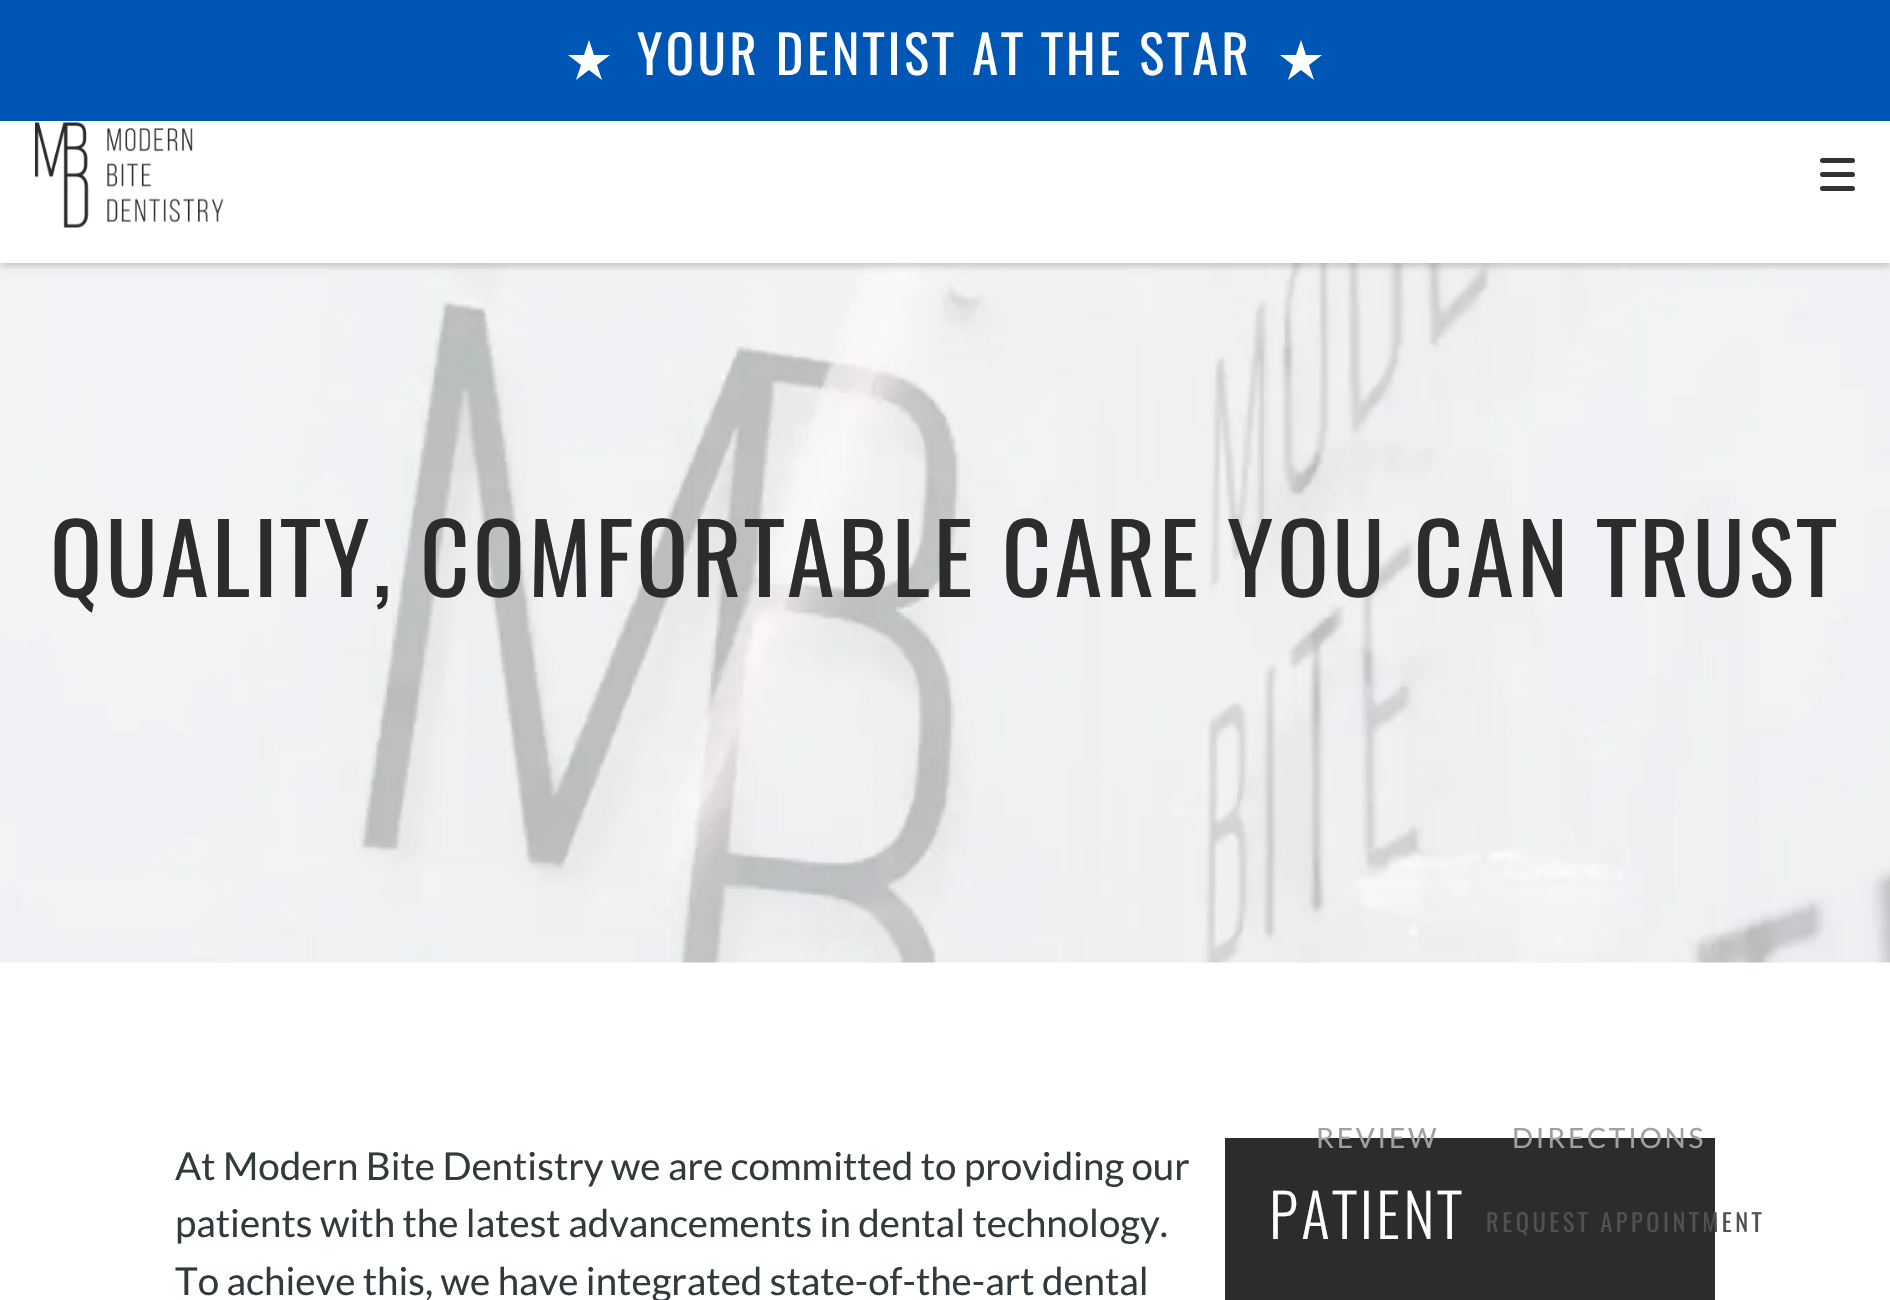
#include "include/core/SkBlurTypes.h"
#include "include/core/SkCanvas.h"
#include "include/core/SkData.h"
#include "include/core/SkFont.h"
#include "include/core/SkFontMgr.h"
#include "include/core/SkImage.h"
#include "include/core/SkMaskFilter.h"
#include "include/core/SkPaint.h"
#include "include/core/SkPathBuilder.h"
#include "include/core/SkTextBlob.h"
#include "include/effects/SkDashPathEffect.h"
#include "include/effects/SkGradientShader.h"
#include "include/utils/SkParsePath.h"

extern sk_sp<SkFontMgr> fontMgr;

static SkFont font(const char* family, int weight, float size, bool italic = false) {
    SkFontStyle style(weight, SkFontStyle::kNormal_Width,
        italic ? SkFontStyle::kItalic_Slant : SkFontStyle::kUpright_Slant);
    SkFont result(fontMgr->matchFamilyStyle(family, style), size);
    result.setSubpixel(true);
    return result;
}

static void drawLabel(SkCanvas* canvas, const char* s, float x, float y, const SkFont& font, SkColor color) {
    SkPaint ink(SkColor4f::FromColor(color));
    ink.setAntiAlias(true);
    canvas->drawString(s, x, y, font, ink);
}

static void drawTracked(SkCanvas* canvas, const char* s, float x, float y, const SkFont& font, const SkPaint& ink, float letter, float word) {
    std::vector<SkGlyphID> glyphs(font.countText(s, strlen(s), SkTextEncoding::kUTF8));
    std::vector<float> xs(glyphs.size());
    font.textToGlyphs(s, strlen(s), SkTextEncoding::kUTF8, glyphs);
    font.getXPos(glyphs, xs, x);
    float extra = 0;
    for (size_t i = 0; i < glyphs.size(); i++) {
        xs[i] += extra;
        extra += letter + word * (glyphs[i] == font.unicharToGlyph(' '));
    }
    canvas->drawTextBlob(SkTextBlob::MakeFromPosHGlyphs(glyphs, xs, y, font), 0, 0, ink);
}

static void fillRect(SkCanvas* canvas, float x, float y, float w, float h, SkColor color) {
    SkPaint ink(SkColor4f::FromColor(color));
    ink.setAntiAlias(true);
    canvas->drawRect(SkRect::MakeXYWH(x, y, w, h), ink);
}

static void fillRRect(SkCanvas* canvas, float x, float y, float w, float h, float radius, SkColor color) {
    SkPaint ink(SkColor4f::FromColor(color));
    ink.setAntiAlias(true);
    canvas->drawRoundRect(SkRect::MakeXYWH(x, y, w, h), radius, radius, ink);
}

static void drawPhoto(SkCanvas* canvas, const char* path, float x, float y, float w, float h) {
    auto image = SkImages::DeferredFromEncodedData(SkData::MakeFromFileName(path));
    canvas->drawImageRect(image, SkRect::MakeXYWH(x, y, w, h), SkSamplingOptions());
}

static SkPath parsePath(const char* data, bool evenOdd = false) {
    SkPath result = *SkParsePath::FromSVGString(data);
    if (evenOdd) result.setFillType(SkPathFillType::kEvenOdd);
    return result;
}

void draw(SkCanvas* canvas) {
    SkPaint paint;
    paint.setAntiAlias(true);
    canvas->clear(0xFFFFFFFF);
    drawPhoto(canvas, "assets/img1.png", 0, 263, 1890, 700);
    paint.setColor(0x4D505050);
    paint.setMaskFilter(SkMaskFilter::MakeBlur(kNormal_SkBlurStyle, 3.5f));
    canvas->drawRect(SkRect::MakeXYWH(0, 91, 1890, 175), paint);
    paint.setMaskFilter(nullptr);
    fillRect(canvas, 0, 0, 1890, 121, 0xFF0056B4);
    paint.setColor(0xFFFFFFFF);
    canvas->drawPath(parsePath("M589 40L594 55H610L597 65L602 80L589 70L576 80L581 65L568 55H584Z"), paint);
    SkFont font1 = font("Oswald", 400, 52.5f);
    drawTracked(canvas, "YOUR DENTIST AT THE STAR", 637, 75, font1, paint, 3.5f, 0);
    canvas->drawPath(parsePath("M1301 40L1306 55H1322L1309 65L1314 80L1301 70L1288 80L1293 65L1280 55H1296Z"), paint);
    SkFont font2 = font("Oswald", 400, 96.25f);
    paint.setColor(0xFF2C2C2C);
    drawTracked(canvas, "QUALITY, COMFORTABLE CARE YOU CAN TRUST", 50, 597, font2, paint, 3.5f, 0);
    SkFont font3 = font("Lato", 400, 38.5f);
    drawLabel(canvas, "At Modern Bite Dentistry we are committed to providing our", 175, 1180, font3, 0xFF313A3C);
    drawLabel(canvas, "patients with the latest advancements in dental technology.", 175, 1237, font3, 0xFF313A3C);
    drawLabel(canvas, "To achieve this, we have integrated state-of-the-art dental", 175, 1295, font3, 0xFF313A3C);
    fillRect(canvas, 1225, 1138, 490, 162, 0xFF2C2C2C);
    SkFont font4 = font("Oswald", 300, 59.5f);
    paint.setColor(0xFFFFFFFF);
    drawTracked(canvas, "PATIENT", 1269, 1239, font4, paint, 3.5f, 0);
    fillRect(canvas, 0, 121, 1890, 142, 0xFFFFFFFF);
    drawPhoto(canvas, "assets/img2.png", 35, 122, 189, 106);
    fillRRect(canvas, 1820, 158, 35, 5, 2.5f, 0xFF333333);
    fillRRect(canvas, 1820, 172, 35, 5, 2.5f, 0xFF333333);
    fillRRect(canvas, 1820, 186, 35, 5, 2.5f, 0xFF333333);
    SkFont font5 = font("Lato", 400, 28);
    paint.setColor(0xFFA0A0A0);
    drawTracked(canvas, "REVIEW", 1316, 1148, font5, paint, 2.75f, 0);
    drawTracked(canvas, "DIRECTIONS", 1512, 1148, font5, paint, 2.75f, 0);
    SkFont font6 = font("Oswald", 400, 24.5f);
    paint.setColor(0xFF515151);
    drawTracked(canvas, "REQUEST APPOINTMENT", 1486, 1232, font6, paint, 3.5f, 0);
}
